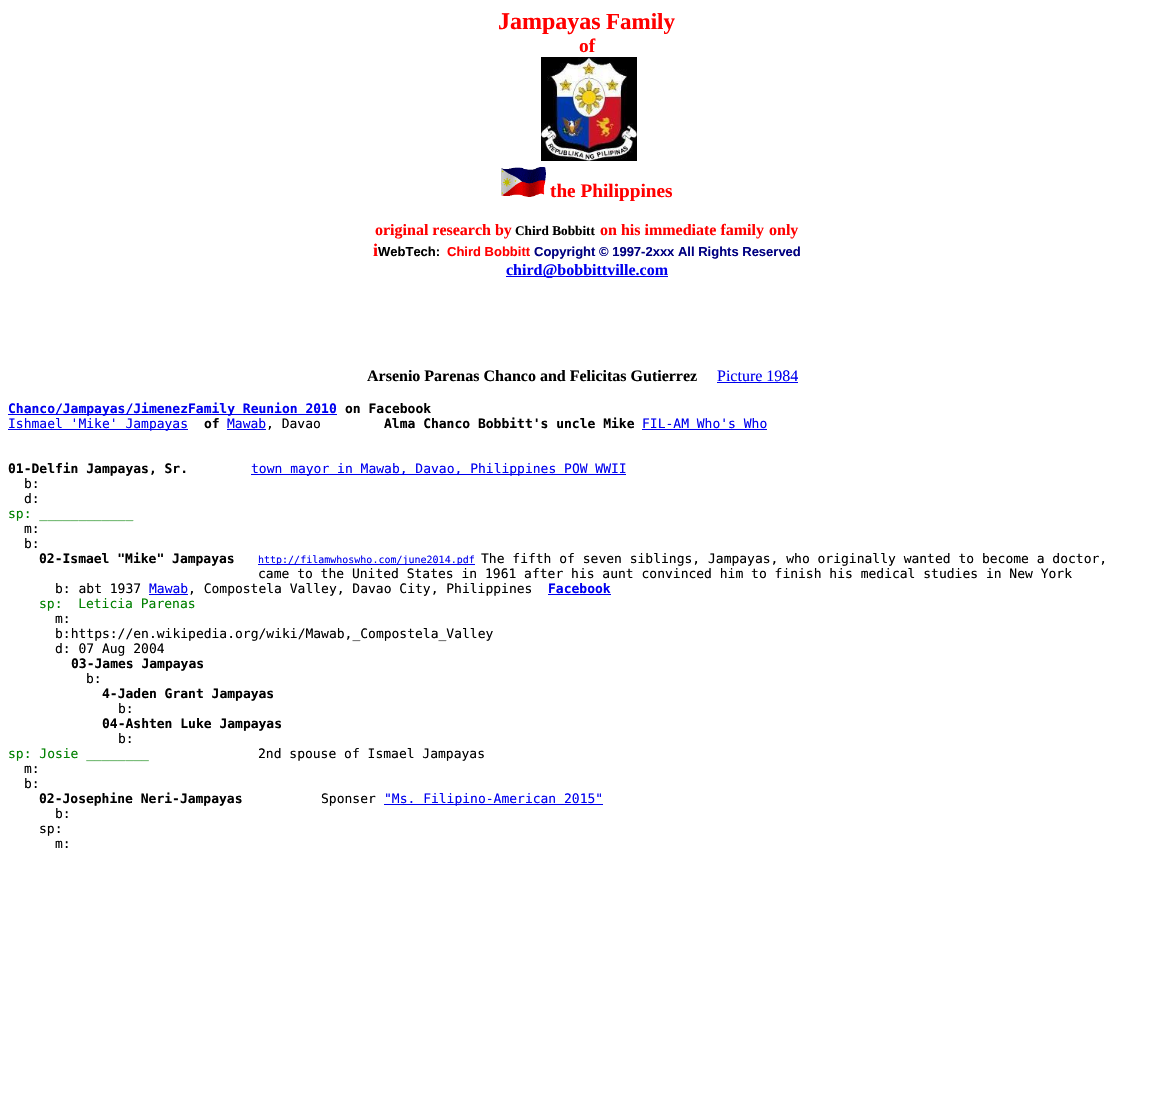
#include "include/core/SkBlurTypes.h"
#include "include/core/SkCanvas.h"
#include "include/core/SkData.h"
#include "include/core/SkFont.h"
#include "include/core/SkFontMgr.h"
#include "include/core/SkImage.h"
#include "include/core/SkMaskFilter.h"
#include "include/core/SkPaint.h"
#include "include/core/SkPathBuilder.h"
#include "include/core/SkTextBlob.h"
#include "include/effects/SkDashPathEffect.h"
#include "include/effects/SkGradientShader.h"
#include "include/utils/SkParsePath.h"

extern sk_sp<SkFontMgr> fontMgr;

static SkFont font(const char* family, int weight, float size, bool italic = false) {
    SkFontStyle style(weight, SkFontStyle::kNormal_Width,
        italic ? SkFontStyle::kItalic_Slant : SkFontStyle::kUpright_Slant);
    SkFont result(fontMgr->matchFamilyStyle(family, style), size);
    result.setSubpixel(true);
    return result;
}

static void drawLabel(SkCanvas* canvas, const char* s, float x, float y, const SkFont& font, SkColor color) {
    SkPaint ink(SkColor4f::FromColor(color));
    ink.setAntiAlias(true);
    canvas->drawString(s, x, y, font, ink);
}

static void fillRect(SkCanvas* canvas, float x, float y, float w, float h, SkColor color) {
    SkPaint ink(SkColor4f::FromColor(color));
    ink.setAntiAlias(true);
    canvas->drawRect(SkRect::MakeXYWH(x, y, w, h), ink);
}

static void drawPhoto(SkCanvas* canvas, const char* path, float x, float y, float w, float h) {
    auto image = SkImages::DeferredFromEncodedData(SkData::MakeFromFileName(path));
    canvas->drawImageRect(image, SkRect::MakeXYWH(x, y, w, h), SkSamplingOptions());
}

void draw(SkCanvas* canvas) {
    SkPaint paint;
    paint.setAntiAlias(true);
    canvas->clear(0xFFFFFFFF);
    SkFont font1 = font("Liberation Serif", 700, 24);
    drawLabel(canvas, "Jampayas", 498, 29, font1, 0xFFFF0000);
    SkFont font2 = font("Liberation Serif", 700, 23);
    drawLabel(canvas, "Family", 606, 29, font2, 0xFFFF0000);
    SkFont font3 = font("Liberation Serif", 700, 19.25f);
    drawLabel(canvas, "of", 579, 52, font3, 0xFFFF0000);
    drawPhoto(canvas, "assets/img1.png", 541, 57, 96, 104);
    drawPhoto(canvas, "assets/img2.png", 501, 167, 45, 30);
    drawLabel(canvas, "the Philippines", 550, 197, font3, 0xFFFF0000);
    SkFont font4 = font("Liberation Serif", 700, 16);
    drawLabel(canvas, "original research by", 375, 235, font4, 0xFFFF0000);
    SkFont font5 = font("Liberation Serif", 700, 13.25f);
    drawLabel(canvas, "Chird Bobbitt", 515, 235, font5, 0xFF000000);
    drawLabel(canvas, "on his immediate family", 600, 235, font4, 0xFFFF0000);
    drawLabel(canvas, "only", 769, 235, font4, 0xFFFF0000);
    SkFont font6 = font("Liberation Serif", 700, 18);
    drawLabel(canvas, "i", 373, 256, font6, 0xFFFF0000);
    SkFont font7 = font("Liberation Sans", 700, 13);
    drawLabel(canvas, "WebTech:", 378, 256, font7, 0xFF000000);
    drawLabel(canvas, "Chird Bobbitt", 447, 256, font7, 0xFFFF0000);
    drawLabel(canvas, "Copyright © 1997-2xxx All Rights Reserved", 534, 256, font7, 0xFF000080);
    fillRect(canvas, 506, 276, 162, 1, 0xFF0000EE);
    drawLabel(canvas, "chird@bobbittville.com", 506, 275, font4, 0xFF0000EE);
    drawLabel(canvas, "Arsenio Parenas Chanco and Felicitas Gutierrez", 367, 381, font4, 0xFF000000);
    SkFont font8 = font("Liberation Serif", 400, 16);
    drawLabel(canvas, "Picture 1984", 717, 381, font8, 0xFF0000EE);
    fillRect(canvas, 717, 382, 81, 1, 0xFF0000EE);
    fillRect(canvas, 8, 414, 329, 1, 0xFF0000EE);
    SkFont font9 = font("DejaVu Sans Mono", 700, 13);
    drawLabel(canvas, "Chanco/Jampayas/JimenezFamily Reunion 2010", 8, 413, font9, 0xFF0000EE);
    drawLabel(canvas, "on Facebook", 345, 413, font9, 0xFF000000);
    fillRect(canvas, 8, 429, 180, 1, 0xFF0000EE);
    SkFont font10 = font("DejaVu Sans Mono", 400, 13);
    drawLabel(canvas, "Ishmael 'Mike' Jampayas", 8, 428, font10, 0xFF0000EE);
    drawLabel(canvas, "of", 204, 428, font9, 0xFF000000);
    drawLabel(canvas, "Mawab", 227, 428, font10, 0xFF0000EE);
    fillRect(canvas, 227, 429, 39, 1, 0xFF0000EE);
    drawLabel(canvas, ", Davao", 266, 428, font10, 0xFF000000);
    drawLabel(canvas, "Alma Chanco Bobbitt's uncle Mike", 384, 428, font9, 0xFF000000);
    drawLabel(canvas, "FIL-AM Who's Who", 642, 428, font10, 0xFF0000EE);
    fillRect(canvas, 642, 429, 125, 1, 0xFF0000EE);
    drawLabel(canvas, "01-Delfin Jampayas, Sr.", 8, 473, font9, 0xFF000000);
    fillRect(canvas, 251, 474, 375, 1, 0xFF0000EE);
    drawLabel(canvas, "town mayor in Mawab, Davao, Philippines POW WWII", 251, 473, font10, 0xFF0000EE);
    drawLabel(canvas, "b:", 24, 488, font10, 0xFF000000);
    drawLabel(canvas, "d:", 24, 503, font10, 0xFF000000);
    drawLabel(canvas, "sp: ____________", 8, 518, font10, 0xFF008000);
    drawLabel(canvas, "m:", 24, 533, font10, 0xFF000000);
    drawLabel(canvas, "b:", 24, 548, font10, 0xFF000000);
    drawLabel(canvas, "02-Ismael \"Mike\" Jampayas", 39, 563, font9, 0xFF000000);
    fillRect(canvas, 258, 564, 217, 1, 0xFF0000EE);
    SkFont font11 = font("DejaVu Sans Mono", 400, 10);
    drawLabel(canvas, "http://filamwhoswho.com/june2014.pdf", 258, 563, font11, 0xFF0000EE);
    drawLabel(canvas, "The fifth of seven siblings, Jampayas, who originally wanted to become a doctor,", 481, 563, font10, 0xFF000000);
    drawLabel(canvas, "came to the United States in 1961 after his aunt convinced him to finish his medical studies in New York", 258, 578, font10, 0xFF000000);
    drawLabel(canvas, "b: abt 1937", 55, 593, font10, 0xFF000000);
    drawLabel(canvas, "Mawab", 149, 593, font10, 0xFF0000EE);
    fillRect(canvas, 149, 594, 39, 1, 0xFF0000EE);
    drawLabel(canvas, ", Compostela Valley, Davao City, Philippines", 188, 593, font10, 0xFF000000);
    drawLabel(canvas, "Facebook", 548, 593, font9, 0xFF0000EE);
    fillRect(canvas, 548, 594, 63, 1, 0xFF0000EE);
    drawLabel(canvas, "sp:  Leticia Parenas", 39, 608, font10, 0xFF008000);
    drawLabel(canvas, "m:", 55, 623, font10, 0xFF000000);
    drawLabel(canvas, "b:https://en.wikipedia.org/wiki/Mawab,_Compostela_Valley", 55, 638, font10, 0xFF000000);
    drawLabel(canvas, "d: 07 Aug 2004", 55, 653, font10, 0xFF000000);
    drawLabel(canvas, "03-James Jampayas", 71, 668, font9, 0xFF000000);
    drawLabel(canvas, "b:", 86, 683, font10, 0xFF000000);
    drawLabel(canvas, "4-Jaden Grant Jampayas", 102, 698, font9, 0xFF000000);
    drawLabel(canvas, "b:", 118, 713, font10, 0xFF000000);
    drawLabel(canvas, "04-Ashten Luke Jampayas", 102, 728, font9, 0xFF000000);
    drawLabel(canvas, "b:", 118, 743, font10, 0xFF000000);
    drawLabel(canvas, "sp: Josie ________", 8, 758, font10, 0xFF008000);
    drawLabel(canvas, "2nd spouse of Ismael Jampayas", 258, 758, font10, 0xFF000000);
    drawLabel(canvas, "m:", 24, 773, font10, 0xFF000000);
    drawLabel(canvas, "b:", 24, 788, font10, 0xFF000000);
    drawLabel(canvas, "02-Josephine Neri-Jampayas", 39, 803, font9, 0xFF000000);
    drawLabel(canvas, "Sponser", 321, 803, font10, 0xFF000000);
    fillRect(canvas, 384, 804, 219, 1, 0xFF0000EE);
    drawLabel(canvas, "\"Ms. Filipino-American 2015\"", 384, 803, font10, 0xFF0000EE);
    drawLabel(canvas, "b:", 55, 818, font10, 0xFF000000);
    drawLabel(canvas, "sp:", 39, 833, font10, 0xFF000000);
    drawLabel(canvas, "m:", 55, 848, font10, 0xFF000000);
}
